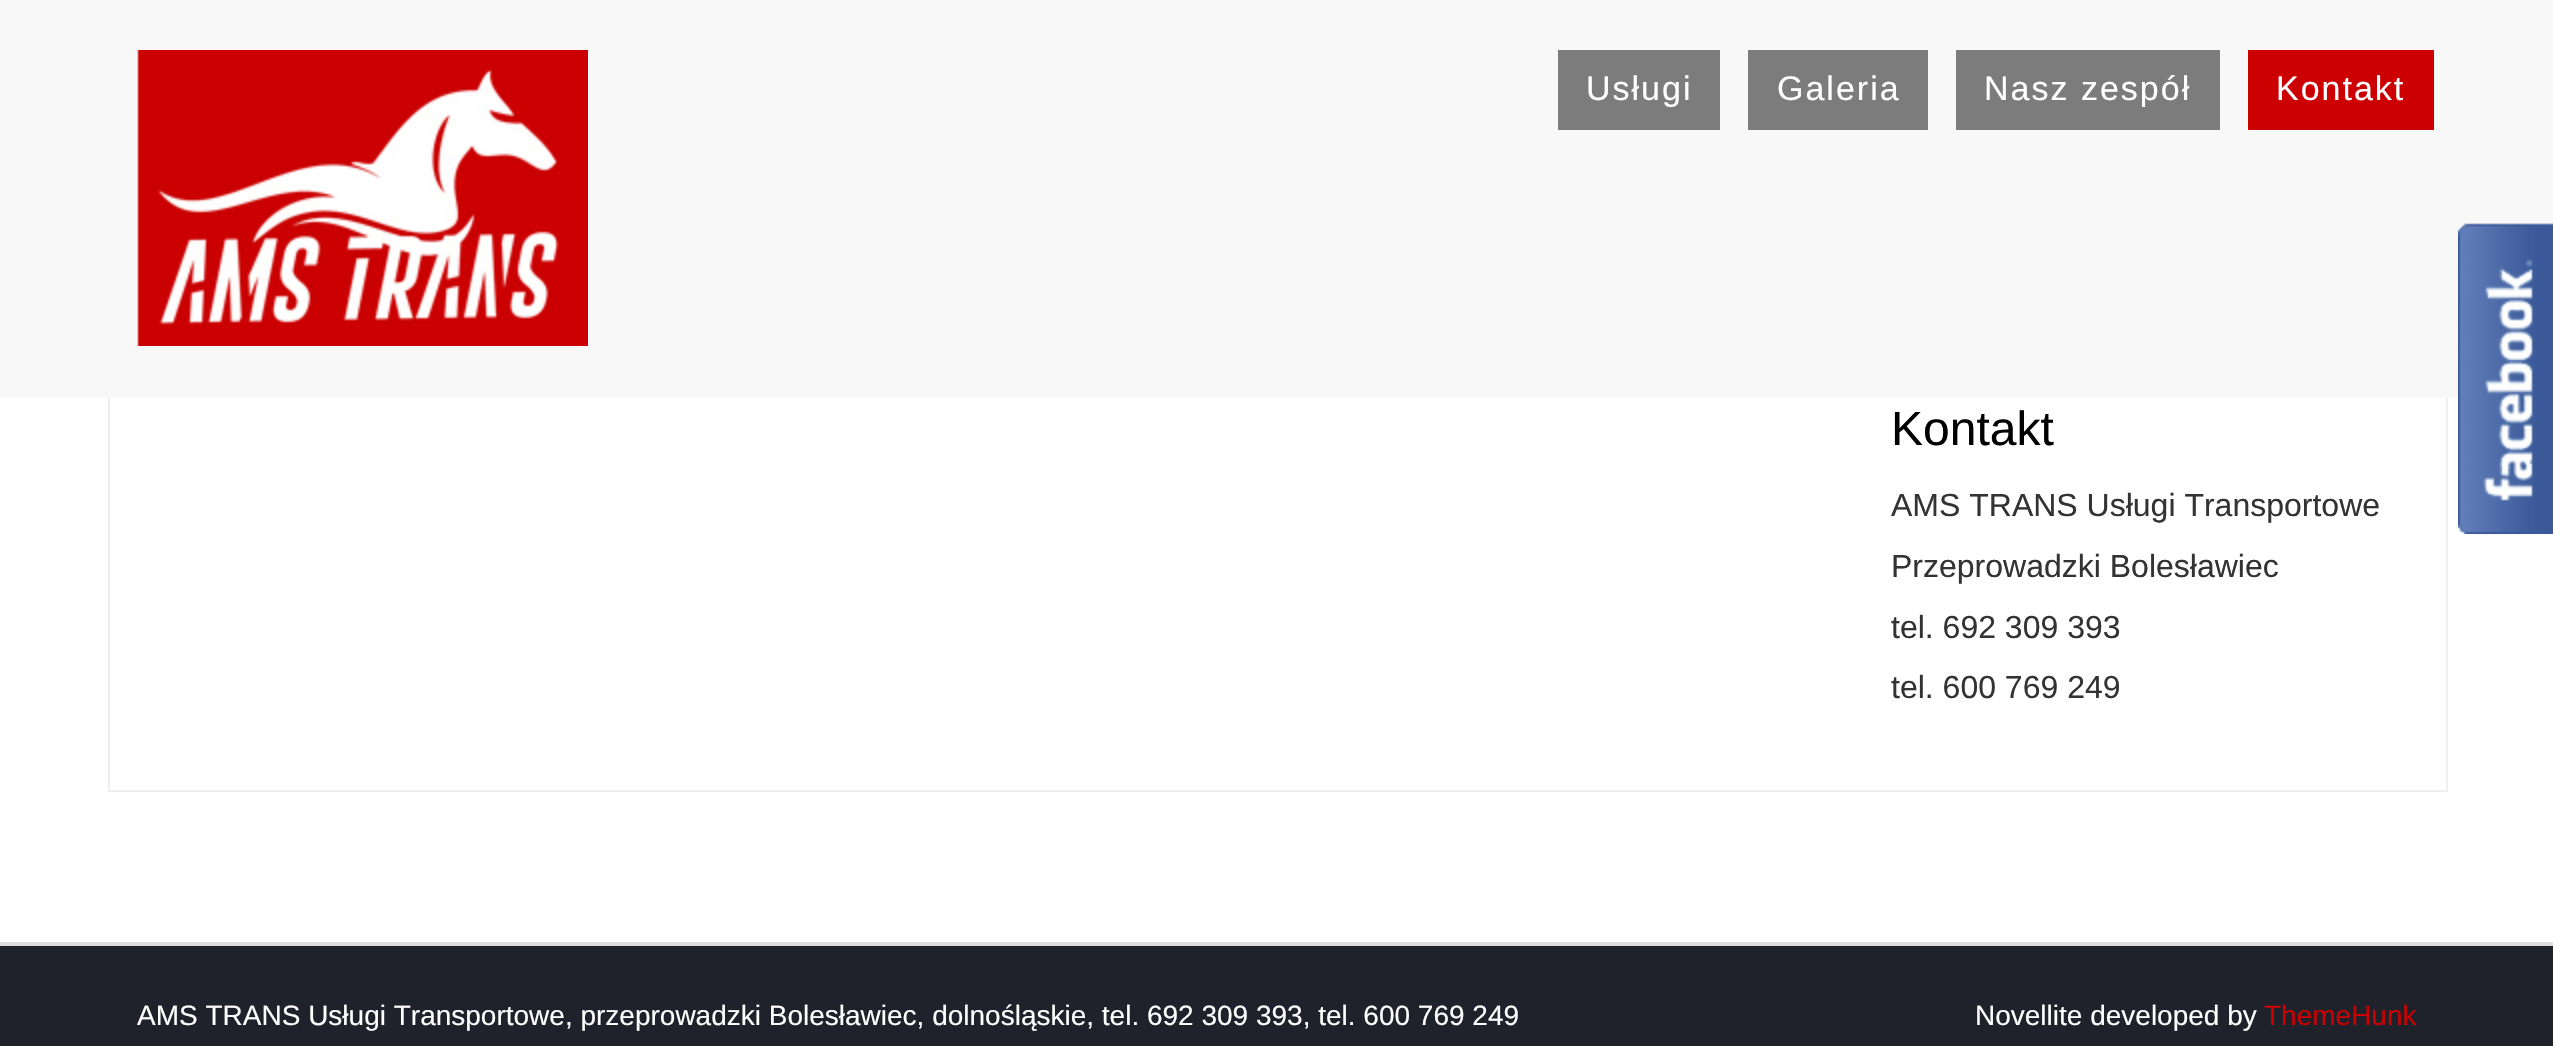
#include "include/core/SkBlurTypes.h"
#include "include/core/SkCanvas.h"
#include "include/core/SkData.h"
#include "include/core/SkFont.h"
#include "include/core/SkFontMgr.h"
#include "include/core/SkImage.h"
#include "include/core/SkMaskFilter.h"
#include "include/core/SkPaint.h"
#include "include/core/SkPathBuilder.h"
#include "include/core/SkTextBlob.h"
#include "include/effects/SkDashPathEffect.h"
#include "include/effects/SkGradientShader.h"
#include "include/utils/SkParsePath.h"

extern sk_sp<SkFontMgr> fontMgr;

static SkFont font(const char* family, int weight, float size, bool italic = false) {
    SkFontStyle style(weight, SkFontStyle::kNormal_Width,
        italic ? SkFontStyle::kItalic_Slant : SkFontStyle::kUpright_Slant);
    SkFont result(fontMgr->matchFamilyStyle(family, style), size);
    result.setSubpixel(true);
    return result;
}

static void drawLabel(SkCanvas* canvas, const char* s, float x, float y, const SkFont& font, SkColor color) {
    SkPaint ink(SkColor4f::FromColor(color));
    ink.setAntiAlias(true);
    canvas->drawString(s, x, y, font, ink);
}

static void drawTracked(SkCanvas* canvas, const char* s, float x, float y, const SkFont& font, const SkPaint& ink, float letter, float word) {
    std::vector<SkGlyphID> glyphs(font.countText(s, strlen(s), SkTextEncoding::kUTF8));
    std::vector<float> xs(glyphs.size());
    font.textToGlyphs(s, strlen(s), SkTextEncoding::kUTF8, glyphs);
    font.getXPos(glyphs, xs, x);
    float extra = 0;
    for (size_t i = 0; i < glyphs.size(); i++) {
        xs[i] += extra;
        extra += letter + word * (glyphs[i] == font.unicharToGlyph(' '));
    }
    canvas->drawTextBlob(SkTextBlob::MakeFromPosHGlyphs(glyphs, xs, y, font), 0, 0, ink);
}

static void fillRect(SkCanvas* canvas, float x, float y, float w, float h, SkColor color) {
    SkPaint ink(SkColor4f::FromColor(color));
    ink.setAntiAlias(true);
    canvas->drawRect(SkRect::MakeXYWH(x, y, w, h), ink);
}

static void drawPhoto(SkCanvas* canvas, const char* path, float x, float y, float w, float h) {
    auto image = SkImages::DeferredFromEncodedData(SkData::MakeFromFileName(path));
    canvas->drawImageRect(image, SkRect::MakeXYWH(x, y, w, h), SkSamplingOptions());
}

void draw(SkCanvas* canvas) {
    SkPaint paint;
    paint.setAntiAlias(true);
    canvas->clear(0xFFFFFFFF);
    paint.setStroke(true);
    paint.setStrokeWidth(2);
    paint.setColor(0xFFEFEFEF);
    canvas->drawRect(SkRect::MakeXYWH(109, 293, 2338, 498), paint);
    fillRect(canvas, 0, 0, 2553, 398, 0xFFF8F8F8);
    drawPhoto(canvas, "assets/img1.png", 137, 50, 451, 296);
    fillRect(canvas, 1558, 50, 162, 80, 0xFF7C7C7C);
    SkFont font1 = font("Liberation Sans", 400, 34);
    paint.setStroke(false);
    paint.setColor(0xFFFFFFFF);
    drawTracked(canvas, "Usługi", 1586, 100, font1, paint, 2, 0);
    fillRect(canvas, 1748, 50, 180, 80, 0xFF7C7C7C);
    drawTracked(canvas, "Galeria", 1777, 100, font1, paint, 2, 0);
    fillRect(canvas, 1956, 50, 264, 80, 0xFF7C7C7C);
    drawTracked(canvas, "Nasz zespół", 1984, 100, font1, paint, 2, 0);
    fillRect(canvas, 2248, 50, 186, 80, 0xFFCC0001);
    drawTracked(canvas, "Kontakt", 2276, 100, font1, paint, 2, 0);
    SkFont font2 = font("Liberation Sans", 400, 48);
    drawLabel(canvas, "Kontakt", 1891, 445, font2, 0xFF000000);
    SkFont font3 = font("Liberation Sans", 400, 32);
    drawLabel(canvas, "AMS TRANS Usługi Transportowe", 1891, 516, font3, 0xFF333333);
    drawLabel(canvas, "Przeprowadzki Bolesławiec", 1891, 577, font3, 0xFF333333);
    drawLabel(canvas, "tel. 692 309 393", 1891, 638, font3, 0xFF333333);
    drawLabel(canvas, "tel. 600 769 249", 1891, 698, font3, 0xFF333333);
    drawPhoto(canvas, "assets/img2.png", 2458, 223, 95, 311);
    fillRect(canvas, 0, 942, 2553, 4, 0xFFDDDDDD);
    fillRect(canvas, 0, 946, 2553, 100, 0xFF20222B);
    SkFont font4 = font("Liberation Sans", 400, 28);
    drawLabel(canvas, "AMS TRANS Usługi Transportowe, przeprowadzki Bolesławiec, dolnośląskie, tel. 692 309 393, tel. 600 769 249", 137, 1025, font4, 0xFFFFFFFF);
    drawLabel(canvas, "Novellite developed by", 1975, 1025, font4, 0xFFFFFFFF);
    drawLabel(canvas, "ThemeHunk", 2264, 1025, font4, 0xFFCC0001);
}
